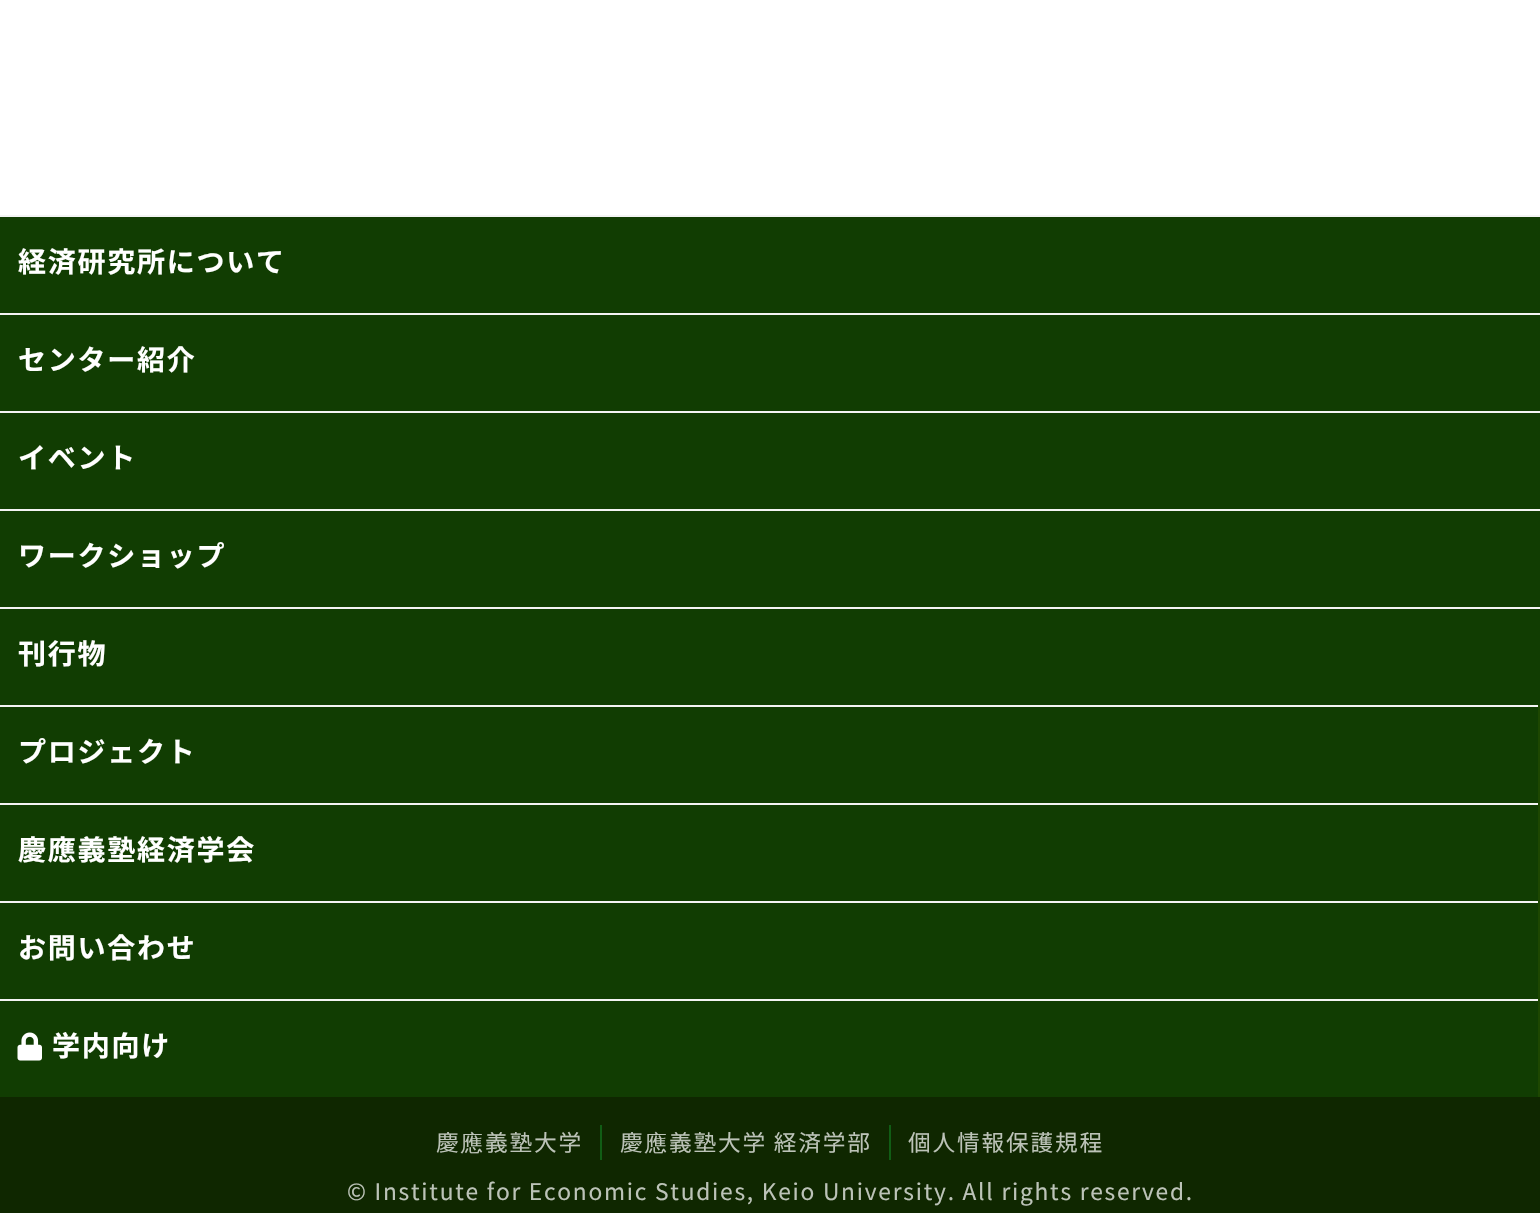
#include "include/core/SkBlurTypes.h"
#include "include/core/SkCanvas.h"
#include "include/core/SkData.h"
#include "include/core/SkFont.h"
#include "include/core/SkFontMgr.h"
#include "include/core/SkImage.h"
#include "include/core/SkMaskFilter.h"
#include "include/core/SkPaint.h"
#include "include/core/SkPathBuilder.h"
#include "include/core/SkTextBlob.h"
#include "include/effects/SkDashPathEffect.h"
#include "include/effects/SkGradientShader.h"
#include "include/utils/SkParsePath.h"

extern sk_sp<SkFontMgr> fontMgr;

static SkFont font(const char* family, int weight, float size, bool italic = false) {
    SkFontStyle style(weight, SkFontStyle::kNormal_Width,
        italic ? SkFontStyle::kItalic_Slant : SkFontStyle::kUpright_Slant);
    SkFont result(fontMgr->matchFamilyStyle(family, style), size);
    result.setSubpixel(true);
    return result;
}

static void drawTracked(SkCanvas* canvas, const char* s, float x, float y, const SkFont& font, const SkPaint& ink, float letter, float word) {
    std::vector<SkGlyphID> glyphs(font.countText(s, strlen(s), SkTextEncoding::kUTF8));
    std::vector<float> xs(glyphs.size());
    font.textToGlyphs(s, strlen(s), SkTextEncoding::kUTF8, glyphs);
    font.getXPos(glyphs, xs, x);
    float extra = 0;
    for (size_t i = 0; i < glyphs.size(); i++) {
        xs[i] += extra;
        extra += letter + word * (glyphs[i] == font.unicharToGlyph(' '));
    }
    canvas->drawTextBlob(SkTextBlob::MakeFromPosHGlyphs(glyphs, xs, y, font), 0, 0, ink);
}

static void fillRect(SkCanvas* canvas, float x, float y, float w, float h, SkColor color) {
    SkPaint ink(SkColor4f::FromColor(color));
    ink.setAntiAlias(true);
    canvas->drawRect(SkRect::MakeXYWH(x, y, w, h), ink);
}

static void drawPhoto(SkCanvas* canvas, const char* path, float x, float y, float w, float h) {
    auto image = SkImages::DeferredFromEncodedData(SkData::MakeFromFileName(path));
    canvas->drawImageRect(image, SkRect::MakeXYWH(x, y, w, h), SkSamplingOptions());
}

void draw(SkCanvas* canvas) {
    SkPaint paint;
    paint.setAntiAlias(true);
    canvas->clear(0xFFFFFFFF);
    fillRect(canvas, 0, 217, 1540, 880, 0xFF113D02);
    fillRect(canvas, 0, 215, 1540, 2, 0xFFF4F4F4);
    SkFont font1 = font("Noto Sans CJK JP", 700, 28);
    paint.setColor(0xFFFFFFFF);
    drawTracked(canvas, "経済研究所について", 18, 272, font1, paint, 1.75f, 0);
    fillRect(canvas, 0, 313, 1540, 2, 0xFFF4F4F4);
    drawTracked(canvas, "センター紹介", 18, 370, font1, paint, 1.75f, 0);
    fillRect(canvas, 0, 411, 1540, 2, 0xFFF4F4F4);
    drawTracked(canvas, "イベント", 18, 468, font1, paint, 1.75f, 0);
    fillRect(canvas, 0, 509, 1540, 2, 0xFFF4F4F4);
    drawTracked(canvas, "ワークショップ", 18, 566, font1, paint, 1.75f, 0);
    fillRect(canvas, 0, 607, 1540, 2, 0xFFF4F4F4);
    drawTracked(canvas, "刊行物", 18, 664, font1, paint, 1.75f, 0);
    fillRect(canvas, 1538, 705, 2, 392, 0xFF1D4701);
    fillRect(canvas, 0, 705, 1538, 2, 0xFFF4F4F4);
    drawTracked(canvas, "プロジェクト", 18, 762, font1, paint, 1.75f, 0);
    fillRect(canvas, 0, 803, 1538, 2, 0xFFF4F4F4);
    drawTracked(canvas, "慶應義塾経済学会", 18, 860, font1, paint, 1.75f, 0);
    fillRect(canvas, 0, 901, 1538, 2, 0xFFF4F4F4);
    drawTracked(canvas, "お問い合わせ", 18, 958, font1, paint, 1.75f, 0);
    fillRect(canvas, 0, 999, 1538, 2, 0xFFF4F4F4);
    drawPhoto(canvas, "assets/img1.png", 17, 1032, 25, 29);
    drawTracked(canvas, "学内向け", 52, 1056, font1, paint, 1.75f, 0);
    fillRect(canvas, 0, 1097, 1540, 116, 0xFF0F2700);
    SkFont font2 = font("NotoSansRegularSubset", 400, 22.75f);
    paint.setColor(0xFFBCC3B8);
    drawTracked(canvas, "慶", 436, 1151, font2, paint, 1.75f, 0);
    SkFont font3 = font("WenQuanYi Zen Hei", 500, 22.75f);
    drawTracked(canvas, "應", 460, 1151, font3, paint, 1.75f, 0);
    drawTracked(canvas, "義塾大学", 485, 1151, font2, paint, 1.75f, 0);
    fillRect(canvas, 600, 1125, 2, 35, 0xFF115D15);
    drawTracked(canvas, "慶", 620, 1151, font2, paint, 1.75f, 0);
    drawTracked(canvas, "應", 644, 1151, font3, paint, 1.75f, 0);
    drawTracked(canvas, "義塾大学 経済学部", 669, 1151, font2, paint, 1.75f, 0);
    fillRect(canvas, 889, 1125, 2, 35, 0xFF115D15);
    drawTracked(canvas, "個人情報保護規程", 908, 1151, font2, paint, 1.75f, 0);
    drawTracked(canvas, "© Institute for Economic Studies, Keio University. All rights reserved.", 347, 1200, font2, paint, 1.75f, 0);
}
